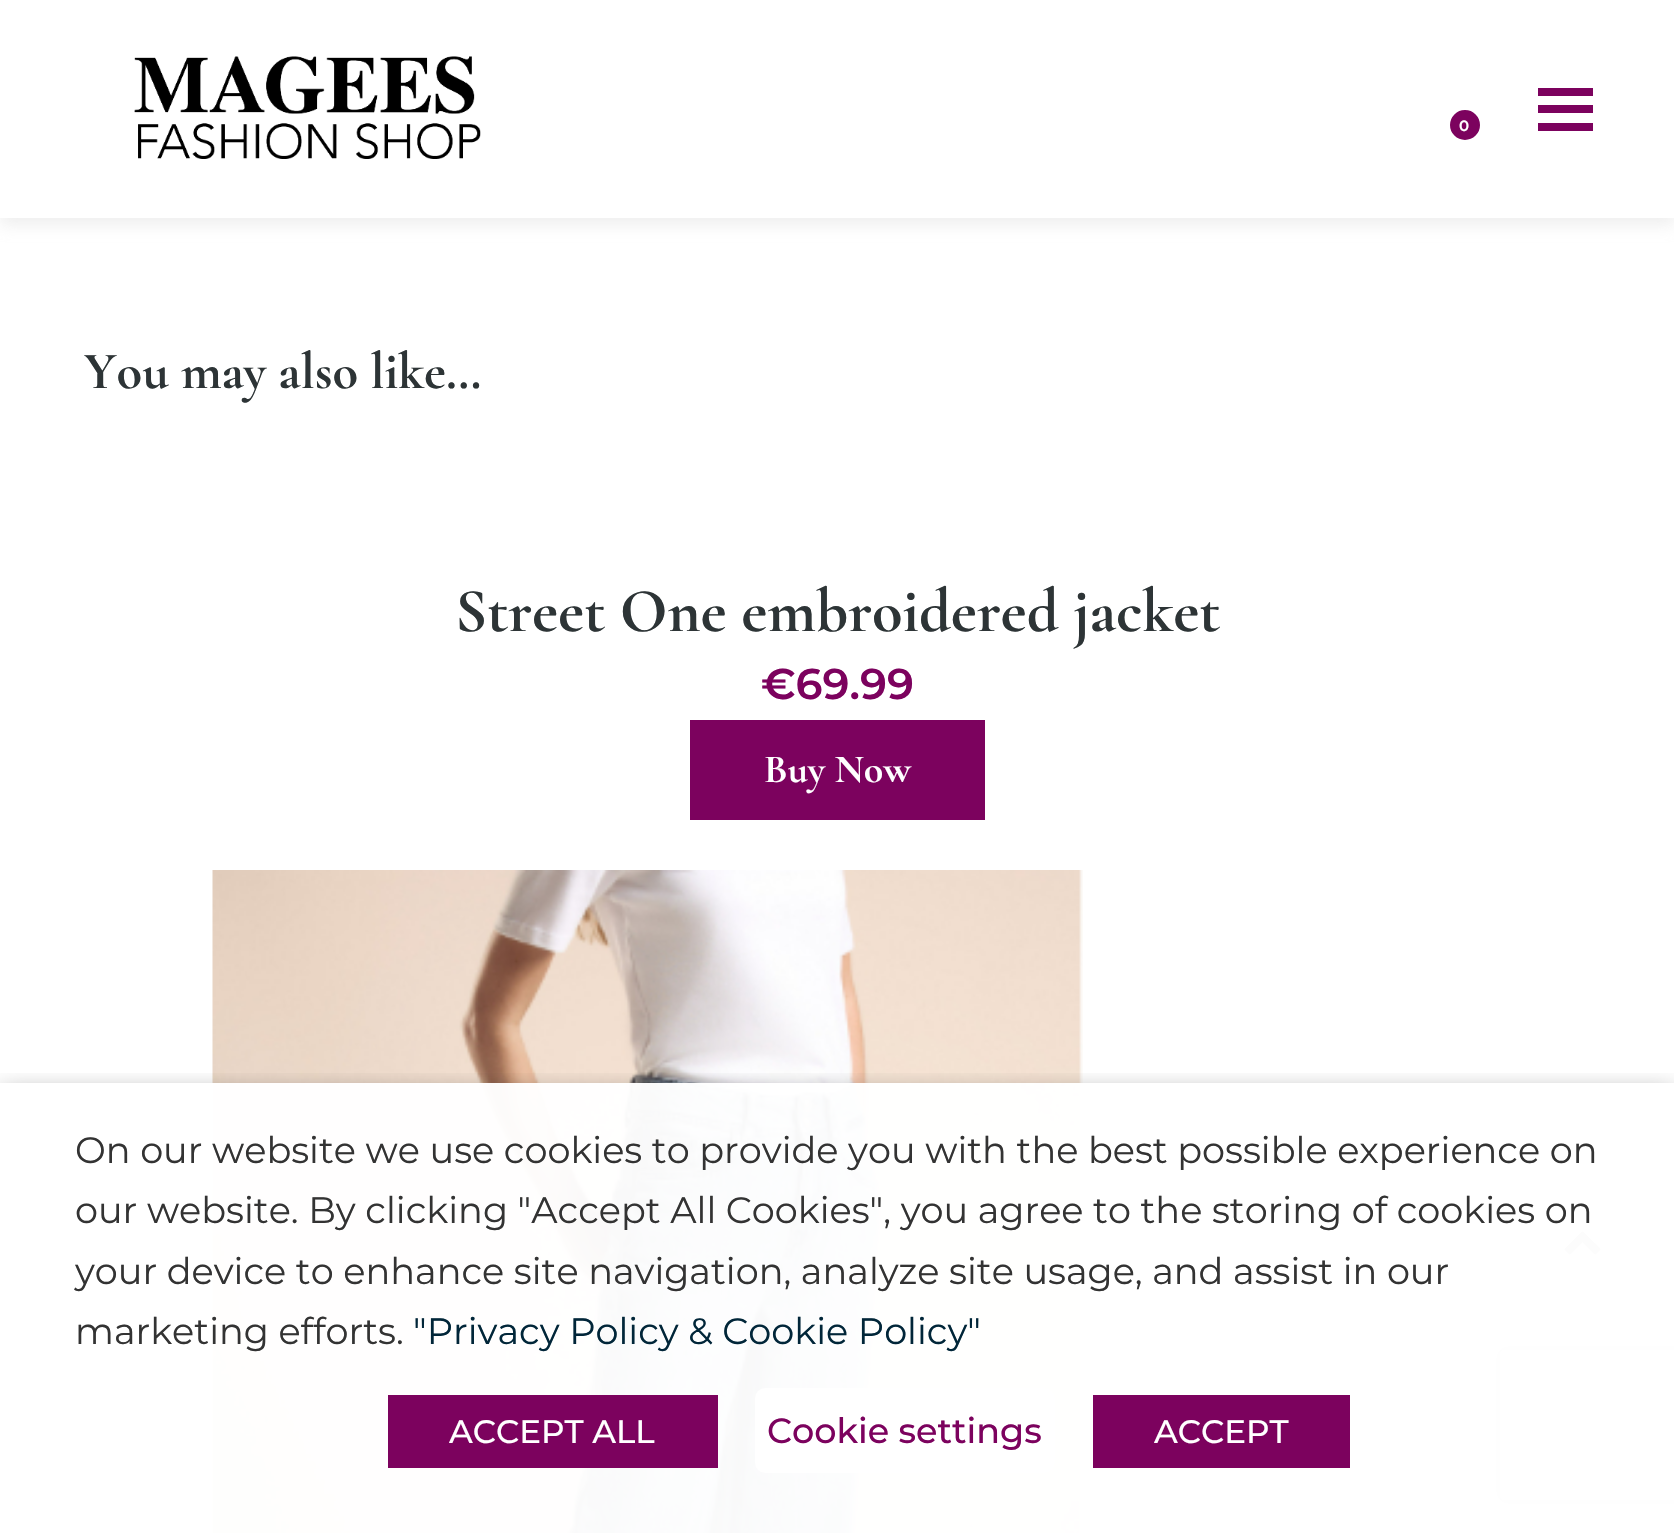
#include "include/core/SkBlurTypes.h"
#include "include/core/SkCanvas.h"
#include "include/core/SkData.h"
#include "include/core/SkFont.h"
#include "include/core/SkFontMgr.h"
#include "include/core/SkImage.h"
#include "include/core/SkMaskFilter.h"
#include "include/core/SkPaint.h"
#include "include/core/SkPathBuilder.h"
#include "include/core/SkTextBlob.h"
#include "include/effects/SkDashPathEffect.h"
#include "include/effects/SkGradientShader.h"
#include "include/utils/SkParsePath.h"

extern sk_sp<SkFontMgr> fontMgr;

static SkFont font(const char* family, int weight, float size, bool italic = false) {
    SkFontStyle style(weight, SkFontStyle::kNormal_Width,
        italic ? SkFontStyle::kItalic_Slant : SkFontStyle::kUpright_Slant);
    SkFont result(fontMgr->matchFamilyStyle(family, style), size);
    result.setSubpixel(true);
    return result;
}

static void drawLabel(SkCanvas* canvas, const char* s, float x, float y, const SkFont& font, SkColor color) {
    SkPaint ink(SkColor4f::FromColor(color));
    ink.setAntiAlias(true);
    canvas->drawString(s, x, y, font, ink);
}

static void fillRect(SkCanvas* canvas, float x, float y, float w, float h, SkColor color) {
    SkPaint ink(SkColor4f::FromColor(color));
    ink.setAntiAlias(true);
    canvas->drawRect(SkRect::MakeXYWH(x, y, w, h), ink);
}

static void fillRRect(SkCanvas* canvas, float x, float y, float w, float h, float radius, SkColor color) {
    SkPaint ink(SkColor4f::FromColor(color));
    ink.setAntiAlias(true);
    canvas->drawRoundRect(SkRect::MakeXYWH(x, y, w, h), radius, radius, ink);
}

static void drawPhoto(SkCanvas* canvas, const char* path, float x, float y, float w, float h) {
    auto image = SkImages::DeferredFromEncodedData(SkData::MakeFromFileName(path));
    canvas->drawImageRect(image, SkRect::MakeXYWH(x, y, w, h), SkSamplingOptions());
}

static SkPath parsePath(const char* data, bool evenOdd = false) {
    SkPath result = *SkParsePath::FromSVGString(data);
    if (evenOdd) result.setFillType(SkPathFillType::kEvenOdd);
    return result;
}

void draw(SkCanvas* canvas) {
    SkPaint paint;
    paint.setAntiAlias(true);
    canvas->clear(0xFFFFFFFF);
    paint.setColor(0x8AE0E0E0);
    paint.setMaskFilter(SkMaskFilter::MakeBlur(kNormal_SkBlurStyle, 7.5f));
    canvas->drawRect(SkRect::MakeXYWH(0, 8, 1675, 217), paint);
    paint.setMaskFilter(nullptr);
    fillRect(canvas, 0, 0, 1674, 218, 0xFFFFFFFF);
    drawPhoto(canvas, "assets/img1.png", 134, 56, 347, 103);
    paint.setColor(0xFF7C025E);
    canvas->drawCircle(1465, 125, 17.5f, paint);
    paint.setStroke(true);
    paint.setStrokeWidth(5);
    paint.setColor(0xFFFFFFFF);
    canvas->drawCircle(1465, 125, 17.5f, paint);
    SkFont font1 = font("Montserrat", 600, 15);
    drawLabel(canvas, "0", 1459, 131, font1, 0xFFFFFFFF);
    fillRect(canvas, 1538, 105, 55, 8, 0xFF7C025E);
    fillRect(canvas, 1538, 88, 55, 8, 0xFF7C025E);
    fillRect(canvas, 1538, 123, 55, 8, 0xFF7C025E);
    SkFont font2 = font("Cormorant Garamond", 700, 52.5f);
    drawLabel(canvas, "You may also like…", 84, 388, font2, 0xFF2D3436);
    SkFont font3 = font("Cormorant Garamond", 700, 62.5f);
    drawLabel(canvas, "Street One embroidered jacket", 455, 631, font3, 0xFF2D3436);
    SkFont font4 = font("Montserrat", 600, 43);
    drawLabel(canvas, "€69.99", 761, 699, font4, 0xFF7C025E);
    fillRect(canvas, 690, 720, 295, 100, 0xFF7C025E);
    SkFont font5 = font("Cormorant Garamond", 700, 40);
    drawLabel(canvas, "Buy Now", 764, 782, font5, 0xFFFFFFFF);
    drawPhoto(canvas, "assets/img2.png", 212, 870, 871, 663);
    paint.setStroke(false);
    paint.setColor(0xFFF7F7F7);
    canvas->drawCircle(1581.5f, 1241.5f, 43.5f, paint);
    drawPhoto(canvas, "assets/img3.png", 1564, 1231, 37, 24);
    canvas->save();
    canvas->clipRect(SkRect::MakeXYWH(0, 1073, 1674, 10));
    paint.setColor(0x80000000);
    paint.setMaskFilter(SkMaskFilter::MakeBlur(kNormal_SkBlurStyle, 12.5f));
    canvas->drawRect(SkRect::MakeXYWH(0, 1095, 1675, 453), paint);
    paint.setMaskFilter(nullptr);
    canvas->restore();
    canvas->save();
    canvas->clipPath(parsePath("M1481 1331H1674V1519H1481ZM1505 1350H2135C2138 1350 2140 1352 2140 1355V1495C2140 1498 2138 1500 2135 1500H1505C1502 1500 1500 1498 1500 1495V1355C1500 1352 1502 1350 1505 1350Z", true), true);
    paint.setColor(0xFF808080);
    paint.setMaskFilter(SkMaskFilter::MakeBlur(kNormal_SkBlurStyle, 6));
    canvas->drawRoundRect(SkRect::MakeXYWH(1500, 1350, 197, 150), 5, 5, paint);
    paint.setMaskFilter(nullptr);
    canvas->restore();
    fillRect(canvas, 212, 1083, 1462, 450, 0xF7FFFFFF);
    SkFont font6 = font("Montserrat", 400, 36.65f);
    drawLabel(canvas, "On our website we use cookies to provide you with the best possible experience on", 75, 1163, font6, 0xFF333333);
    drawLabel(canvas, "our website. By clicking \"Accept All Cookies\", you agree to the storing of cookies on", 75, 1223, font6, 0xFF333333);
    drawLabel(canvas, "your device to enhance site navigation, analyze site usage, and assist in our", 75, 1284, font6, 0xFF333333);
    drawLabel(canvas, "marketing efforts.", 75, 1344, font6, 0xFF333333);
    drawLabel(canvas, "\"Privacy Policy & Cookie Policy\"", 413, 1344, font6, 0xFF012639);
    fillRect(canvas, 388, 1395, 330, 73, 0xFF7C025E);
    SkFont font7 = font("Montserrat", 500, 32.5f);
    drawLabel(canvas, "ACCEPT ALL", 449, 1443, font7, 0xFFFFFFFF);
    fillRRect(canvas, 755, 1388, 300, 85, 10, 0xFFFFFFFF);
    SkFont font8 = font("Montserrat", 500, 35);
    drawLabel(canvas, "Cookie settings", 767, 1443, font8, 0xFF7C025E);
    fillRect(canvas, 1093, 1395, 257, 73, 0xFF7C025E);
    drawLabel(canvas, "ACCEPT", 1154, 1443, font7, 0xFFFFFFFF);
}
